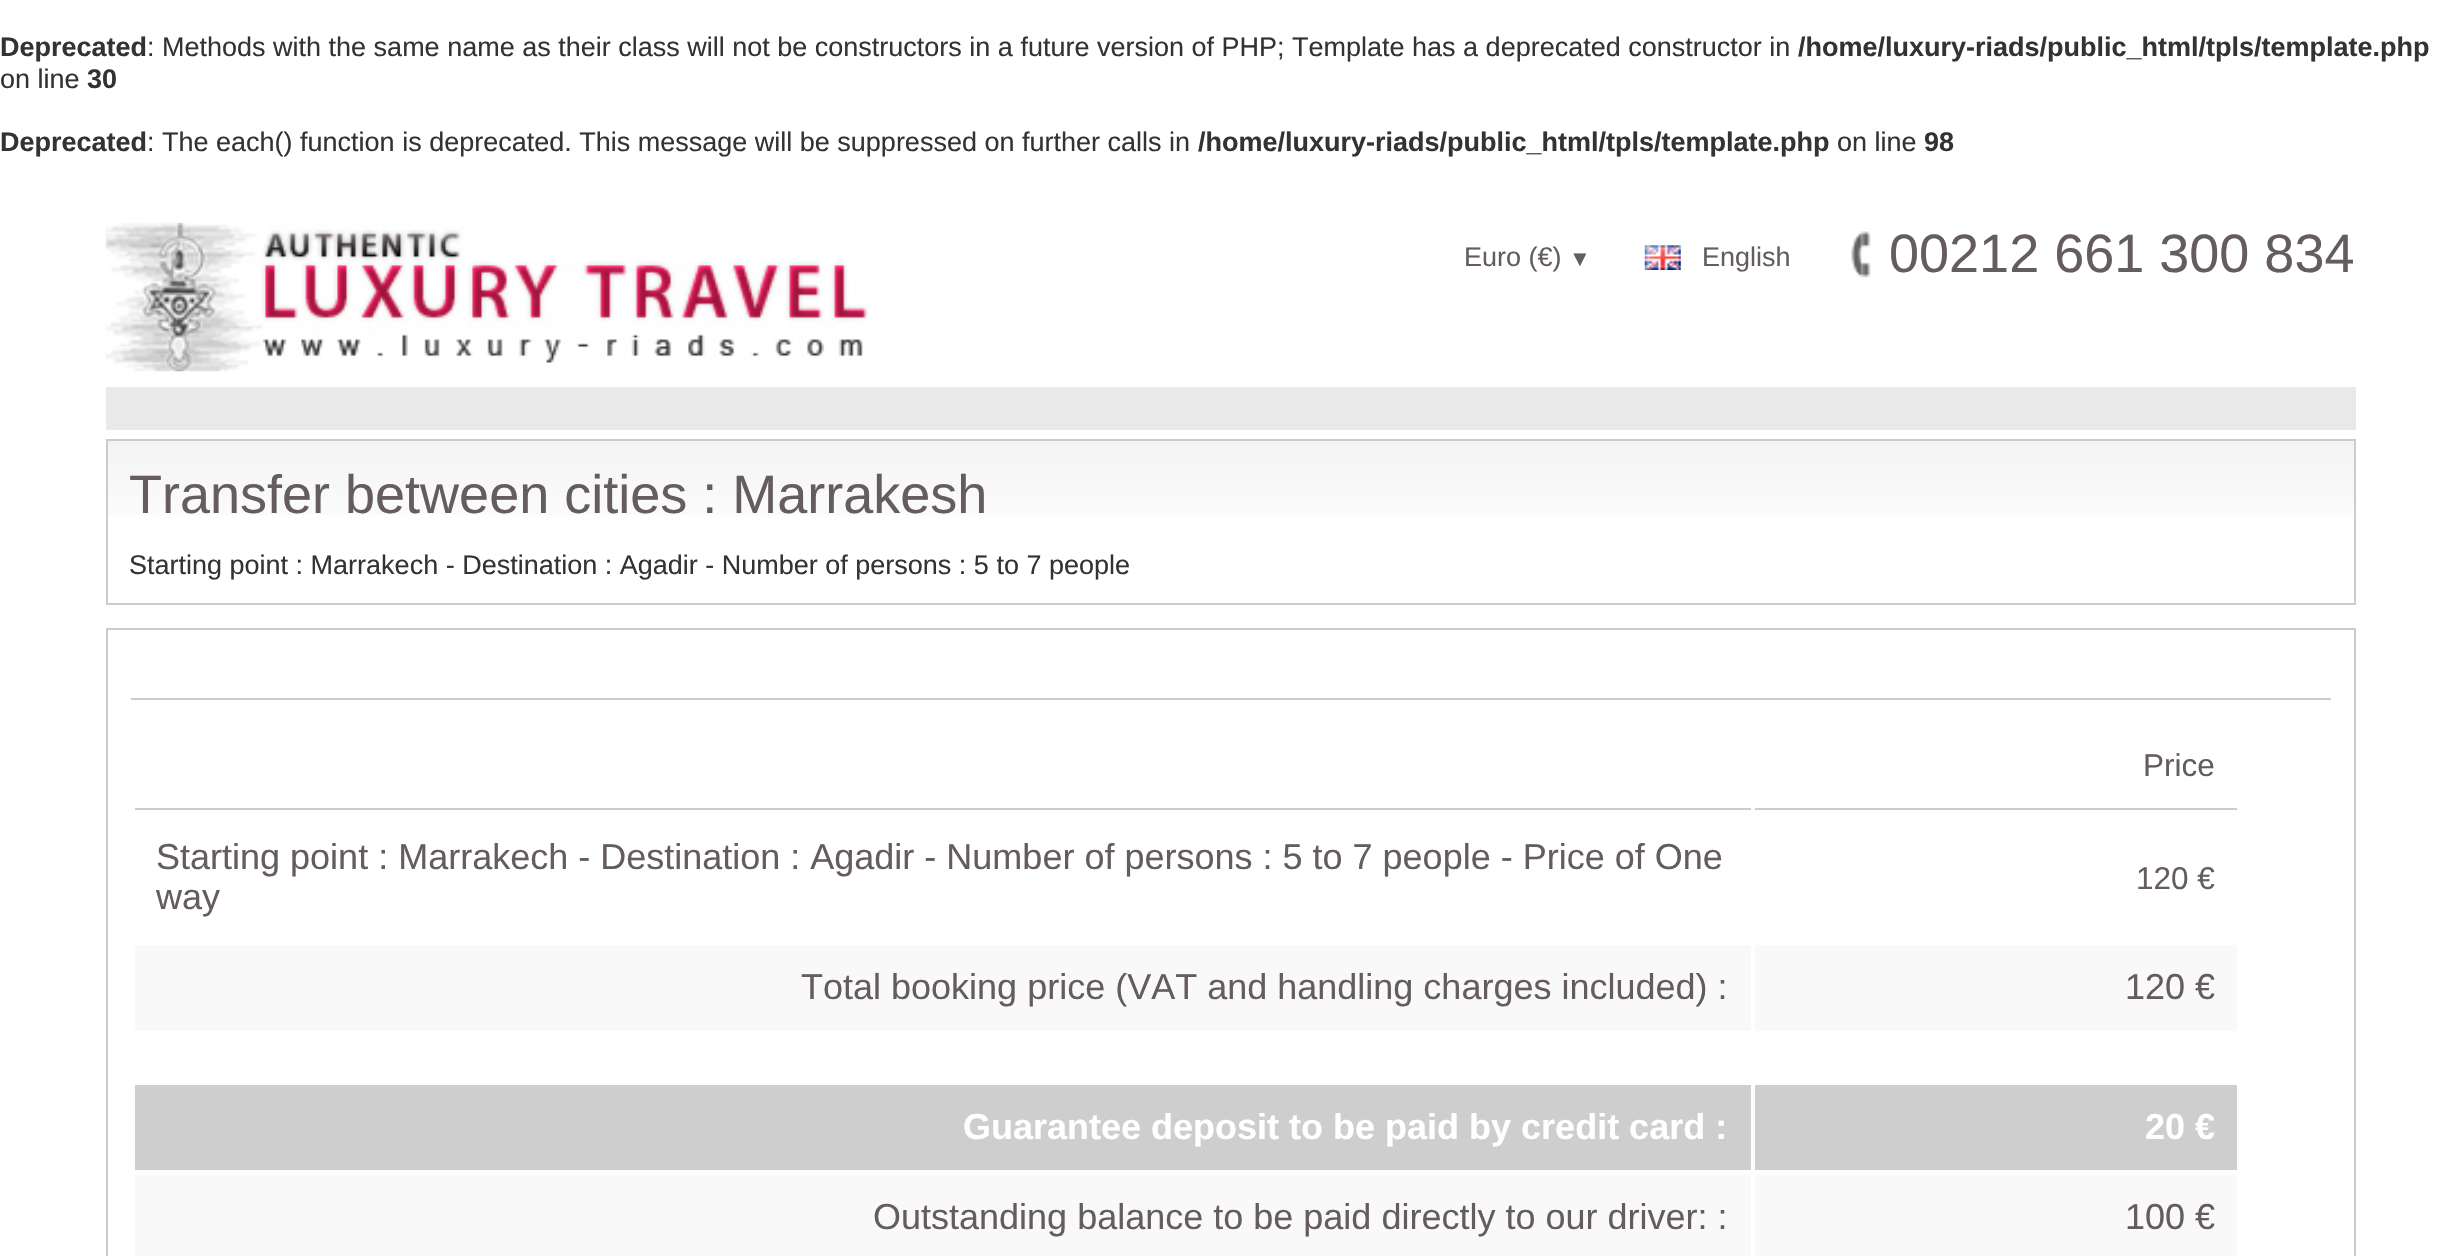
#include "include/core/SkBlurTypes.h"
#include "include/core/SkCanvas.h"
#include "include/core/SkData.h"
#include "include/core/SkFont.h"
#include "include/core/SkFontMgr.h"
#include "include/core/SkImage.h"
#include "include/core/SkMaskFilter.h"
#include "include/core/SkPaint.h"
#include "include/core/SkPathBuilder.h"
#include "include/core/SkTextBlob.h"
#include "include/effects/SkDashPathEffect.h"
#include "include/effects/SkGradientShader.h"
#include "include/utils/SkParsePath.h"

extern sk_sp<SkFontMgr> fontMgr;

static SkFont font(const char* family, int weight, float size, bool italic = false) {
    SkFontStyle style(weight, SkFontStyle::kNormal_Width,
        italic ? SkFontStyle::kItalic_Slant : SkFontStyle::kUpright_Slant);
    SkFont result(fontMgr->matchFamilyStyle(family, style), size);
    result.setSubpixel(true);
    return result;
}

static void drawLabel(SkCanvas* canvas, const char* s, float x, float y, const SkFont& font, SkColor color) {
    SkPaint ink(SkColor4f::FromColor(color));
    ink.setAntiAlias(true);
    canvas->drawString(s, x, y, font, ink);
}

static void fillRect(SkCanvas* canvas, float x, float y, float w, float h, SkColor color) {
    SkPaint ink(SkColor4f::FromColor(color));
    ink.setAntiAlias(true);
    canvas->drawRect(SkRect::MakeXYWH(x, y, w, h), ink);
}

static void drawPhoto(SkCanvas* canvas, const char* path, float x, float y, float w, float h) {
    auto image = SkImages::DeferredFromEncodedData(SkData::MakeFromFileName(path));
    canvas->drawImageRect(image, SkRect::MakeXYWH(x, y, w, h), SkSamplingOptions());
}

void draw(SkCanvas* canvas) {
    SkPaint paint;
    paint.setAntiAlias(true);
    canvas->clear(0xFFFFFFFF);
    SkFont font1 = font("Liberation Sans", 700, 27);
    drawLabel(canvas, "Deprecated", 0, 56, font1, 0xFF333333);
    SkFont font2 = font("Liberation Sans", 400, 27);
    drawLabel(canvas, ": Methods with the same name as their class will not be constructors in a future version of PHP; Template has a deprecated constructor in", 147, 56, font2, 0xFF333333);
    drawLabel(canvas, "/home/luxury-riads/public_html/tpls/template.php", 1798, 56, font1, 0xFF333333);
    drawLabel(canvas, "on line", 0, 88, font2, 0xFF333333);
    drawLabel(canvas, "30", 87, 88, font1, 0xFF333333);
    drawLabel(canvas, "Deprecated", 0, 151, font1, 0xFF333333);
    drawLabel(canvas, ": The each() function is deprecated. This message will be suppressed on further calls in", 147, 151, font2, 0xFF333333);
    drawLabel(canvas, "/home/luxury-riads/public_html/tpls/template.php", 1198, 151, font1, 0xFF333333);
    drawLabel(canvas, "on line", 1837, 151, font2, 0xFF333333);
    drawLabel(canvas, "98", 1924, 151, font1, 0xFF333333);
    drawPhoto(canvas, "assets/img1.png", 105, 222, 764, 150);
    drawLabel(canvas, "Euro (€)", 1464, 266, font2, 0xFF655D5D);
    SkFont font3 = font("Liberation Sans", 400, 22);
    drawLabel(canvas, "▼", 1569, 266, font3, 0xFF655D5D);
    drawPhoto(canvas, "assets/img2.png", 1644, 245, 37, 25);
    drawLabel(canvas, "English", 1702, 266, font2, 0xFF655D5D);
    drawPhoto(canvas, "assets/img3.png", 1851, 231, 20, 47);
    SkFont font4 = font("Liberation Sans", 400, 54);
    drawLabel(canvas, "00212 661 300 834", 1889, 272, font4, 0xFF655D5D);
    fillRect(canvas, 106, 387, 2250, 43, 0xFFEAE9E9);
    drawPhoto(canvas, "assets/img4.png", 108, 441, 2246, 74);
    paint.setStroke(true);
    paint.setStrokeWidth(2);
    paint.setColor(0xFFCCCCCC);
    canvas->drawRect(SkRect::MakeXYWH(107, 440, 2248, 164), paint);
    drawLabel(canvas, "Transfer between cities : Marrakesh", 129, 513, font4, 0xFF655D5D);
    drawLabel(canvas, "Starting point : Marrakech - Destination : Agadir - Number of persons : 5 to 7 people", 129, 574, font2, 0xFF333333);
    canvas->drawRect(SkRect::MakeXYWH(107, 629, 2248, 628), paint);
    fillRect(canvas, 131, 698, 2200, 2, 0xFFCCCCCC);
    fillRect(canvas, 1755, 808, 482, 2, 0xFFCCCCCC);
    SkFont font5 = font("Liberation Sans", 400, 31.5f);
    drawLabel(canvas, "Price", 2143, 776, font5, 0xFF655D5D);
    fillRect(canvas, 135, 808, 1616, 2, 0xFFCCCCCC);
    SkFont font6 = font("Liberation Sans", 400, 36);
    drawLabel(canvas, "Starting point : Marrakech - Destination : Agadir - Number of persons : 5 to 7 people - Price of One", 156, 869, font6, 0xFF655D5D);
    drawLabel(canvas, "way", 156, 909, font6, 0xFF655D5D);
    drawLabel(canvas, "120 €", 2136, 889, font5, 0xFF655D5D);
    fillRect(canvas, 135, 945, 1616, 86, 0xFFF9F9F9);
    drawLabel(canvas, "Total booking price (VAT and handling charges included) :", 801, 999, font6, 0xFF655D5D);
    fillRect(canvas, 1755, 945, 482, 86, 0xFFF9F9F9);
    drawLabel(canvas, "120 €", 2125, 999, font6, 0xFF655D5D);
    fillRect(canvas, 135, 1085, 1616, 85, 0xFFCECECE);
    SkFont font7 = font("Liberation Sans", 700, 36);
    drawLabel(canvas, "Guarantee deposit to be paid by credit card :", 963, 1139, font7, 0xFFFFFFFF);
    fillRect(canvas, 1755, 1085, 482, 85, 0xFFCECECE);
    drawLabel(canvas, "20 €", 2145, 1139, font7, 0xFFFFFFFF);
    fillRect(canvas, 135, 1175, 1616, 81, 0xFFF9F9F9);
    drawLabel(canvas, "Outstanding balance to be paid directly to our driver: :", 873, 1229, font6, 0xFF655D5D);
    fillRect(canvas, 1755, 1175, 482, 81, 0xFFF9F9F9);
    drawLabel(canvas, "100 €", 2125, 1229, font6, 0xFF655D5D);
}
